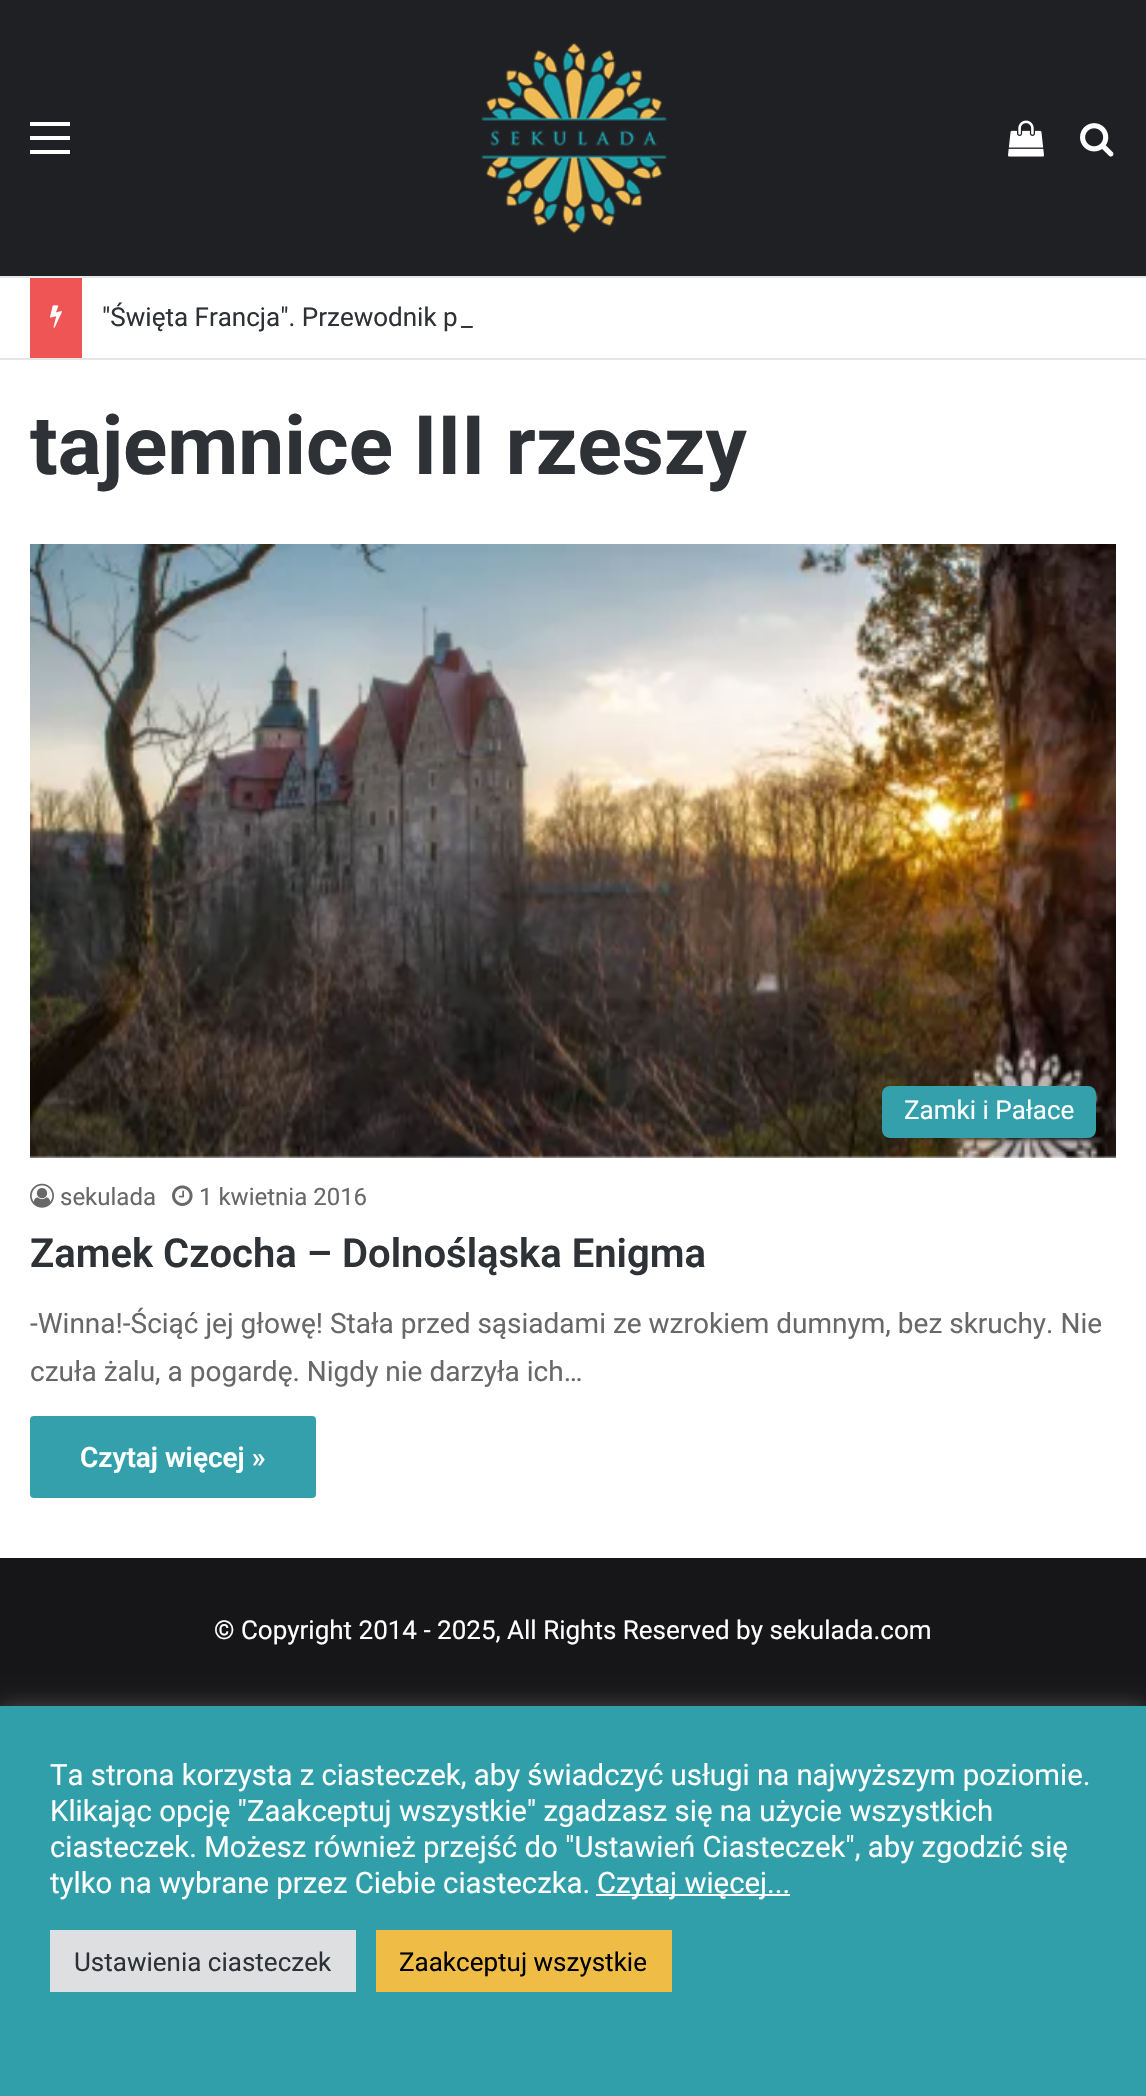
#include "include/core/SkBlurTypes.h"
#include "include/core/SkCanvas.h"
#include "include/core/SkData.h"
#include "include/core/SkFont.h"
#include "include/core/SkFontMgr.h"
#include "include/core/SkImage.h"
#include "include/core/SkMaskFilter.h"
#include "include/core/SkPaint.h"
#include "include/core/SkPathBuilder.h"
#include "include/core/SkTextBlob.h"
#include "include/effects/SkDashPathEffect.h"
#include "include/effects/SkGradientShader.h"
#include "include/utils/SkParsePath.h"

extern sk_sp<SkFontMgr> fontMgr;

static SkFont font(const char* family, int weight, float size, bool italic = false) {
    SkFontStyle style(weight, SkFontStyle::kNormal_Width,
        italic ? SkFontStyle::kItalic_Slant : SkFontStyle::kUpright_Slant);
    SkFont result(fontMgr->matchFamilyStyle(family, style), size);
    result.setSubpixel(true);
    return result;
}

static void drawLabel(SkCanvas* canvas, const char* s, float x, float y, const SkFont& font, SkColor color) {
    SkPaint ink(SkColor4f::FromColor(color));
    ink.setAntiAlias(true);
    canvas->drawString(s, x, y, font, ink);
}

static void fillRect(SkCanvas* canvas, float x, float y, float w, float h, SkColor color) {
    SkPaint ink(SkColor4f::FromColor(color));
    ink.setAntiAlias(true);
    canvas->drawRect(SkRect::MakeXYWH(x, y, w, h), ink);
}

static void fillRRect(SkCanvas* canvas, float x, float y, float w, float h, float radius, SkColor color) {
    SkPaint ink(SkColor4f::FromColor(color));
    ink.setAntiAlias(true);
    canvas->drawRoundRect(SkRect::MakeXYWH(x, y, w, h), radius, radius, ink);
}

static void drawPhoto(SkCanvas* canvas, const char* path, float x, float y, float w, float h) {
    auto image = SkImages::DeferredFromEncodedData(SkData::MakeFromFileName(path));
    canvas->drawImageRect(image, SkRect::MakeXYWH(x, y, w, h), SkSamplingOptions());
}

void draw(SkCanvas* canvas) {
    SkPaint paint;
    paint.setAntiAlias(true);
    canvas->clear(0xFFFFFFFF);
    fillRect(canvas, 0, 0, 1146, 276, 0xFF1F2024);
    fillRect(canvas, 30, 136, 40, 4, 0xFFFFFFFF);
    fillRect(canvas, 30, 122, 40, 4, 0xFFFFFFFF);
    fillRect(canvas, 30, 150, 40, 4, 0xFFFFFFFF);
    drawPhoto(canvas, "assets/img1.png", 481, 42, 186, 192);
    drawPhoto(canvas, "assets/img2.png", 1008, 120, 36, 37);
    drawPhoto(canvas, "assets/img3.png", 1080, 123, 34, 34);
    fillRect(canvas, 0, 276, 1146, 2, 0xFFE6E6E6);
    fillRect(canvas, 0, 358, 1146, 2, 0xFFE6E6E6);
    fillRect(canvas, 30, 278, 52, 80, 0xFFF05555);
    drawPhoto(canvas, "assets/img4.png", 50, 305, 12, 23);
    SkFont font1 = font("Roboto", 400, 26);
    drawLabel(canvas, "\"Święta Francja\". Przewodnik p", 102, 326, font1, 0xFF2E3136);
    drawLabel(canvas, "_", 461, 326, font1, 0xFF2E3136);
    SkFont font2 = font("Roboto", 700, 82);
    drawLabel(canvas, "tajemnice III rzeszy", 30, 474, font2, 0xFF2E3136);
    drawPhoto(canvas, "assets/img5.png", 30, 544, 1086, 614);
    fillRRect(canvas, 882, 1086, 214, 52, 8, 0xFF33A0AB);
    drawLabel(canvas, "Zamki i Pałace", 904, 1119, font1, 0xFFFFFFFF);
    drawPhoto(canvas, "assets/img6.png", 30, 1183, 24, 25);
    SkFont font3 = font("Roboto", 400, 24);
    drawLabel(canvas, "sekulada", 60, 1205, font3, 0xFF686868);
    drawPhoto(canvas, "assets/img7.png", 172, 1185, 21, 21);
    drawLabel(canvas, "1 kwietnia 2016", 199, 1205, font3, 0xFF686868);
    SkFont font4 = font("Roboto", 600, 40);
    drawLabel(canvas, "Zamek Czocha – Dolnośląska Enigma", 30, 1267, font4, 0xFF2E3136);
    SkFont font5 = font("Roboto", 400, 28);
    drawLabel(canvas, "-Winna!-Ściąć jej głowę! Stała przed sąsiadami ze wzrokiem dumnym, bez skruchy. Nie", 30, 1333, font5, 0xFF686868);
    drawLabel(canvas, "czuła żalu, a pogardę. Nigdy nie darzyła ich…", 30, 1381, font5, 0xFF686868);
    fillRRect(canvas, 30, 1416, 286, 82, 4, 0xFF33A0AB);
    SkFont font6 = font("Roboto", 600, 28);
    drawLabel(canvas, "Czytaj więcej »", 80, 1467, font6, 0xFFFFFFFF);
    fillRect(canvas, 0, 1558, 1146, 148, 0xFF161619);
    drawLabel(canvas, "© Copyright 2014 - 2025, All Rights Reserved by sekulada.com", 214, 1639, font1, 0xFFFFFFFF);
    paint.setColor(0x4DACABAB);
    paint.setMaskFilter(SkMaskFilter::MakeBlur(kNormal_SkBlurStyle, 10));
    canvas->drawRect(SkRect::MakeXYWH(0, 1704, 1146, 390), paint);
    paint.setMaskFilter(nullptr);
    fillRect(canvas, 0, 1706, 1146, 390, 0xFF319FAA);
    SkFont font7 = font("Roboto", 400, 29.35f);
    drawLabel(canvas, "Ta strona korzysta z ciasteczek, aby świadczyć usługi na najwyższym poziomie.", 50, 1785, font7, 0xFFFFFFFF);
    drawLabel(canvas, "Klikając opcję \"Zaakceptuj wszystkie\" zgadzasz się na użycie wszystkich", 50, 1821, font7, 0xFFFFFFFF);
    drawLabel(canvas, "ciasteczek. Możesz również przejść do \"Ustawień Ciasteczek\", aby zgodzić się", 50, 1857, font7, 0xFFFFFFFF);
    drawLabel(canvas, "tylko na wybrane przez Ciebie ciasteczka.", 50, 1893, font7, 0xFFFFFFFF);
    fillRect(canvas, 596, 1894, 194, 2, 0xFFFFFFFF);
    drawLabel(canvas, "Czytaj więcej...", 597, 1893, font7, 0xFFFFFFFF);
    fillRect(canvas, 50, 1930, 306, 62, 0xFFDEDFE0);
    drawLabel(canvas, "Ustawienia ciasteczek", 74, 1971, font1, 0xFF2E3136);
    fillRect(canvas, 376, 1930, 296, 62, 0xFFEFBD45);
    drawLabel(canvas, "Zaakceptuj wszystkie", 399, 1971, font1, 0xFF000000);
}
